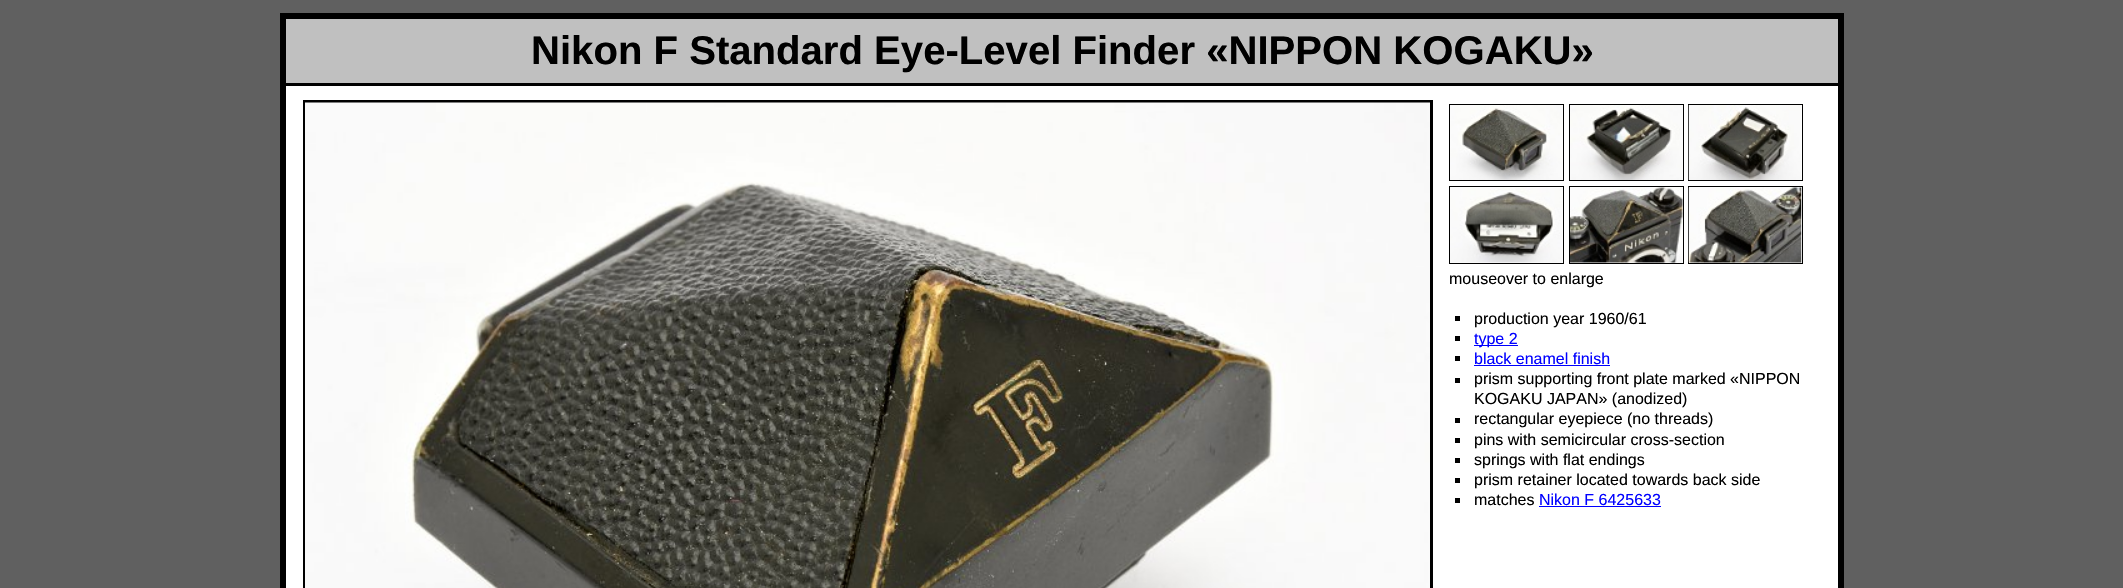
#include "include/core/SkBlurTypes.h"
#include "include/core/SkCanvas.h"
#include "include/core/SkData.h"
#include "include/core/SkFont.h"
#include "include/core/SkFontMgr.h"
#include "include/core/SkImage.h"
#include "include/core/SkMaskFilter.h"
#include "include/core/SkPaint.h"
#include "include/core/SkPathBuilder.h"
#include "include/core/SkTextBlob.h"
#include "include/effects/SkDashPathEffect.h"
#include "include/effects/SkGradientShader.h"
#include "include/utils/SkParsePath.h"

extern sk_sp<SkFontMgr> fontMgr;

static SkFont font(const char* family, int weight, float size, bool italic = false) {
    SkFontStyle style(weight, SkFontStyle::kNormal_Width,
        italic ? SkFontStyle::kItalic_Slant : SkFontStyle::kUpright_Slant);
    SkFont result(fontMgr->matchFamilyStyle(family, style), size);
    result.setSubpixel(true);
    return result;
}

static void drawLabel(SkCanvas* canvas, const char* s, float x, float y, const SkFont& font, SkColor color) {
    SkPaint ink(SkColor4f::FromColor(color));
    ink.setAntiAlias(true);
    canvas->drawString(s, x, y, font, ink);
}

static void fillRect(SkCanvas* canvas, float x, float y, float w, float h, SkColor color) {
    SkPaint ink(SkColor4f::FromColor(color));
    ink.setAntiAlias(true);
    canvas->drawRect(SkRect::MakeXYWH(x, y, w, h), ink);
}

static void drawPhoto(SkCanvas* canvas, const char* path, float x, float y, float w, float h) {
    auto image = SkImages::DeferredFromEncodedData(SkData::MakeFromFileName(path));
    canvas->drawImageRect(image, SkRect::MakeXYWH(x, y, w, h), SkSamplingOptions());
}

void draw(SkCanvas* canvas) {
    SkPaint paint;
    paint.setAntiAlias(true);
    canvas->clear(0xFF606060);
    fillRect(canvas, 286, 86, 1552, 502, 0xFFFFFFFF);
    paint.setStroke(true);
    paint.setStrokeWidth(6);
    paint.setColor(0xFF000000);
    canvas->drawRect(SkRect::MakeXYWH(283, 16, 1558, 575), paint);
    fillRect(canvas, 286, 19, 1552, 64, 0xFFC0C0C0);
    fillRect(canvas, 286, 83, 1552, 3, 0xFF000000);
    SkFont font1 = font("Liberation Sans", 700, 40.1f);
    drawLabel(canvas, "Nikon F Standard Eye-Level Finder «NIPPON KOGAKU»", 531, 64, font1, 0xFF000000);
    paint.setStrokeWidth(3);
    canvas->drawRect(SkRect::MakeXYWH(304.5f, 101.5f, 1127, 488), paint);
    drawPhoto(canvas, "assets/img1.png", 305, 102, 1125, 486);
    paint.setStrokeWidth(1);
    canvas->drawRect(SkRect::MakeXYWH(1449.5f, 104.5f, 114, 76), paint);
    canvas->drawRect(SkRect::MakeXYWH(1569.5f, 104.5f, 114, 76), paint);
    canvas->drawRect(SkRect::MakeXYWH(1688.5f, 104.5f, 114, 76), paint);
    drawPhoto(canvas, "assets/img2.png", 1450, 105, 113, 75);
    drawPhoto(canvas, "assets/img3.png", 1570, 105, 113, 75);
    drawPhoto(canvas, "assets/img4.png", 1688, 105, 113, 75);
    canvas->drawRect(SkRect::MakeXYWH(1449.5f, 186.5f, 114, 77), paint);
    canvas->drawRect(SkRect::MakeXYWH(1569.5f, 186.5f, 114, 77), paint);
    canvas->drawRect(SkRect::MakeXYWH(1688.5f, 186.5f, 114, 77), paint);
    drawPhoto(canvas, "assets/img5.png", 1450, 187, 113, 76);
    drawPhoto(canvas, "assets/img6.png", 1570, 187, 113, 76);
    drawPhoto(canvas, "assets/img7.png", 1688, 187, 114, 76);
    SkFont font2 = font("Liberation Sans", 400, 16);
    drawLabel(canvas, "mouseover to enlarge", 1449, 284, font2, 0xFF000000);
    fillRect(canvas, 1455, 316, 5, 5, 0xFF000000);
    drawLabel(canvas, "production year 1960/61", 1474, 324, font2, 0xFF000000);
    fillRect(canvas, 1455, 336, 5, 5, 0xFF000000);
    fillRect(canvas, 1474, 345, 44, 1, 0xFF0000FF);
    drawLabel(canvas, "type 2", 1474, 344, font2, 0xFF0000FF);
    fillRect(canvas, 1455, 356, 5, 5, 0xFF000000);
    drawLabel(canvas, "black enamel finish", 1474, 364, font2, 0xFF0000FF);
    fillRect(canvas, 1474, 365, 136, 1, 0xFF0000FF);
    fillRect(canvas, 1455, 378, 5, 5, 0xFF000000);
    drawLabel(canvas, "prism supporting front plate marked «NIPPON", 1474, 384, font2, 0xFF000000);
    drawLabel(canvas, "KOGAKU JAPAN» (anodized)", 1474, 404, font2, 0xFF000000);
    fillRect(canvas, 1455, 418, 5, 5, 0xFF000000);
    drawLabel(canvas, "rectangular eyepiece (no threads)", 1474, 424, font2, 0xFF000000);
    fillRect(canvas, 1455, 438, 5, 5, 0xFF000000);
    drawLabel(canvas, "pins with semicircular cross-section", 1474, 445, font2, 0xFF000000);
    fillRect(canvas, 1455, 458, 5, 5, 0xFF000000);
    drawLabel(canvas, "springs with flat endings", 1474, 465, font2, 0xFF000000);
    fillRect(canvas, 1455, 478, 5, 5, 0xFF000000);
    drawLabel(canvas, "prism retainer located towards back side", 1474, 485, font2, 0xFF000000);
    fillRect(canvas, 1455, 498, 5, 5, 0xFF000000);
    drawLabel(canvas, "matches", 1474, 505, font2, 0xFF000000);
    drawLabel(canvas, "Nikon F 6425633", 1539, 505, font2, 0xFF0000FF);
    fillRect(canvas, 1539, 506, 122, 1, 0xFF0000FF);
}
